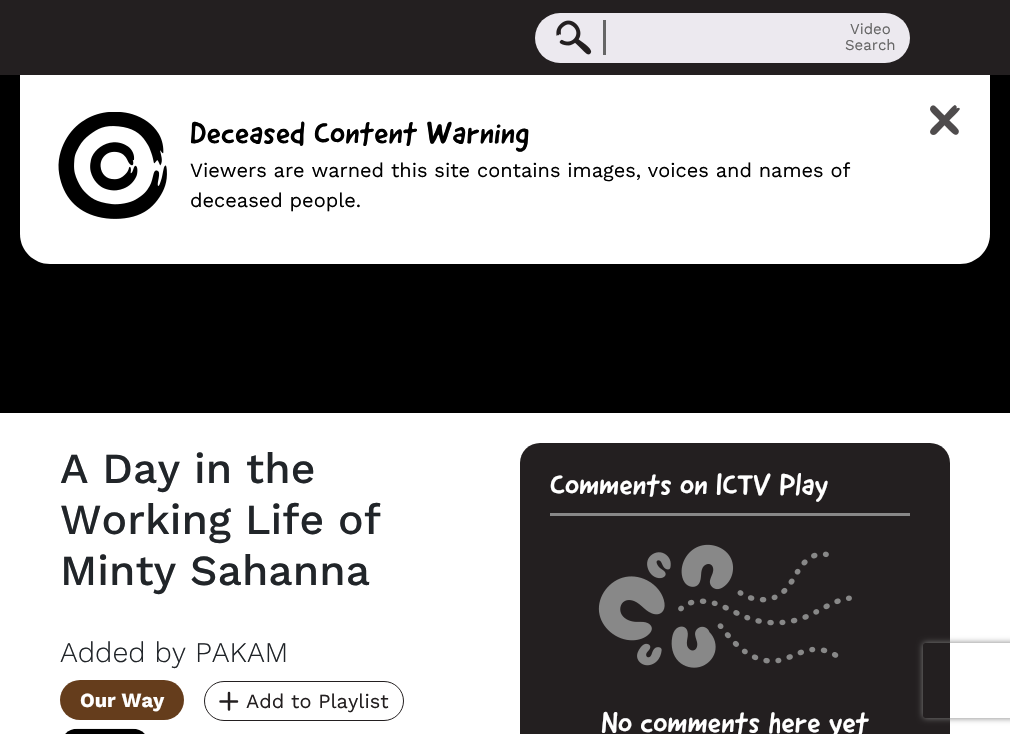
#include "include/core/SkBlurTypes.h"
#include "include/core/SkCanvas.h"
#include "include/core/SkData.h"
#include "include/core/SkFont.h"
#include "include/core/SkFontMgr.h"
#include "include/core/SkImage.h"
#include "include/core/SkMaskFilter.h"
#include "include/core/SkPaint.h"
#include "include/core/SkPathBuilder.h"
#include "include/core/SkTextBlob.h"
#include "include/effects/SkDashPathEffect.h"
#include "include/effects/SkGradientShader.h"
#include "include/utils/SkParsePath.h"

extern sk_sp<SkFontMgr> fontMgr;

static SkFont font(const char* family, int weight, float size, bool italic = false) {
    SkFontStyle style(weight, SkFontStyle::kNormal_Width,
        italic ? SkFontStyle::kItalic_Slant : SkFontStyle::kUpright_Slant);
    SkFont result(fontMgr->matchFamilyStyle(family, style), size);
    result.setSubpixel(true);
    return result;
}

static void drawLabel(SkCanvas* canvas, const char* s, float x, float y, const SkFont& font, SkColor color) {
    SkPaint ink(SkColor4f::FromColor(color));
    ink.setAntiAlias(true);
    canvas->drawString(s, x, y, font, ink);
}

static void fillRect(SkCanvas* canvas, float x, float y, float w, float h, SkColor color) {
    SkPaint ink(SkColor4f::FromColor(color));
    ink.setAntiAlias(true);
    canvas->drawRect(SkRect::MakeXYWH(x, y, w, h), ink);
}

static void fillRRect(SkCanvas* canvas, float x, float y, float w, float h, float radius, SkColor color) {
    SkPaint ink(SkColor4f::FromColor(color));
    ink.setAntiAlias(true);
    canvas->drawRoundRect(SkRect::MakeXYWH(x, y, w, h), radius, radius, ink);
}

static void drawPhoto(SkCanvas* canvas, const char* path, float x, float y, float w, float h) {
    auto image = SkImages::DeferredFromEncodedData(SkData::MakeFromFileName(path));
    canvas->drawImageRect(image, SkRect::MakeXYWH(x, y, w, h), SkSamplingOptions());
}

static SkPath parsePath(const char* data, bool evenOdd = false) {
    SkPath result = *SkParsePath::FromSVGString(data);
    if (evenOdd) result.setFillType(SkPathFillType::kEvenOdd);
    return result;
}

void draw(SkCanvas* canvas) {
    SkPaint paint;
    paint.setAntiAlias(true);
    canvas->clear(0xFFFFFFFF);
    fillRect(canvas, 0, 0, 1010, 75, 0xFF231F20);
    fillRRect(canvas, 535, 13, 375, 50, 25, 0xFFECE9EF);
    drawPhoto(canvas, "assets/img1.png", 556, 20, 36, 35);
    fillRect(canvas, 603, 20, 3, 35, 0xFF666666);
    SkFont font1 = font("Work Sans", 400, 15);
    drawLabel(canvas, "Video", 850, 34, font1, 0xFF666666);
    drawLabel(canvas, "Search", 845, 50, font1, 0xFF666666);
    fillRect(canvas, 0, 75, 1010, 338, 0xFF000000);
    SkFont font2 = font("Work Sans", 500, 42.75f);
    drawLabel(canvas, "A Day in the", 60, 483, font2, 0xFF212529);
    drawLabel(canvas, "Working Life of", 60, 534, font2, 0xFF212529);
    drawLabel(canvas, "Minty Sahanna", 60, 585, font2, 0xFF212529);
    SkFont font3 = font("Work Sans", 300, 28.5f);
    drawLabel(canvas, "Added by PAKAM", 60, 662, font3, 0xFF212529);
    fillRRect(canvas, 60, 680, 124, 40, 20, 0xFF653D1C);
    SkFont font4 = font("Work Sans", 700, 20);
    drawLabel(canvas, "Our Way", 80, 707, font4, 0xFFFFFFFF);
    paint.setStroke(true);
    paint.setStrokeWidth(1);
    paint.setColor(0xFF231F20);
    canvas->drawRoundRect(SkRect::MakeXYWH(204.5f, 681.5f, 199, 39), 19.5f, 19.5f, paint);
    paint.setStrokeWidth(2.5f);
    paint.setStrokeCap(SkPaint::kRound_Cap);
    canvas->drawPath(parsePath("M229 693V709.5M220.5 701.5H237"), paint);
    SkFont font5 = font("Work Sans", 400, 20);
    drawLabel(canvas, "Add to Playlist", 246, 708, font5, 0xFF231F20);
    drawPhoto(canvas, "assets/img2.png", 65, 728, 80, 6);
    fillRRect(canvas, 520, 443, 430, 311, 20, 0xFF231F20);
    fillRect(canvas, 550, 513, 360, 3, 0xFF888888);
    SkFont font6 = font("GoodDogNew", 400, 30);
    drawLabel(canvas, "Comments on ICTV Play", 550, 495, font6, 0xFFFFFFFF);
    drawPhoto(canvas, "assets/img3.png", 598, 544, 254, 124);
    drawLabel(canvas, "No comments here yet", 601, 733, font6, 0xFFFFFFFF);
    paint.setStroke(false);
    paint.setColor(0xFFFFFFFF);
    canvas->drawPath(parsePath("M20 75H990V234C990 250.5 976.5 264 960 264H50C33.5 264 20 250.5 20 234Z"), paint);
    drawPhoto(canvas, "assets/img4.png", 58, 112, 109, 107);
    SkFont font7 = font("GoodDogNew", 400, 32);
    drawLabel(canvas, "Deceased Content Warning", 190, 144, font7, 0xFF000000);
    drawLabel(canvas, "Viewers are warned this site contains images, voices and names of", 190, 177, font5, 0xFF000000);
    drawLabel(canvas, "deceased people.", 190, 207, font5, 0xFF000000);
    drawPhoto(canvas, "assets/img5.png", 930, 105, 30, 30);
    canvas->save();
    canvas->clipPath(parsePath("M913 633H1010V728H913ZM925.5 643H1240.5C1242 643 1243 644 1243 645.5V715.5C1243 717 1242 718 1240.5 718H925.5C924 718 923 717 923 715.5V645.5C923 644 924 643 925.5 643Z", true), true);
    paint.setColor(0xFF808080);
    paint.setMaskFilter(SkMaskFilter::MakeBlur(kNormal_SkBlurStyle, 3));
    canvas->drawRoundRect(SkRect::MakeXYWH(923, 643, 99, 75), 2.5f, 2.5f, paint);
    paint.setMaskFilter(nullptr);
    canvas->restore();
}
